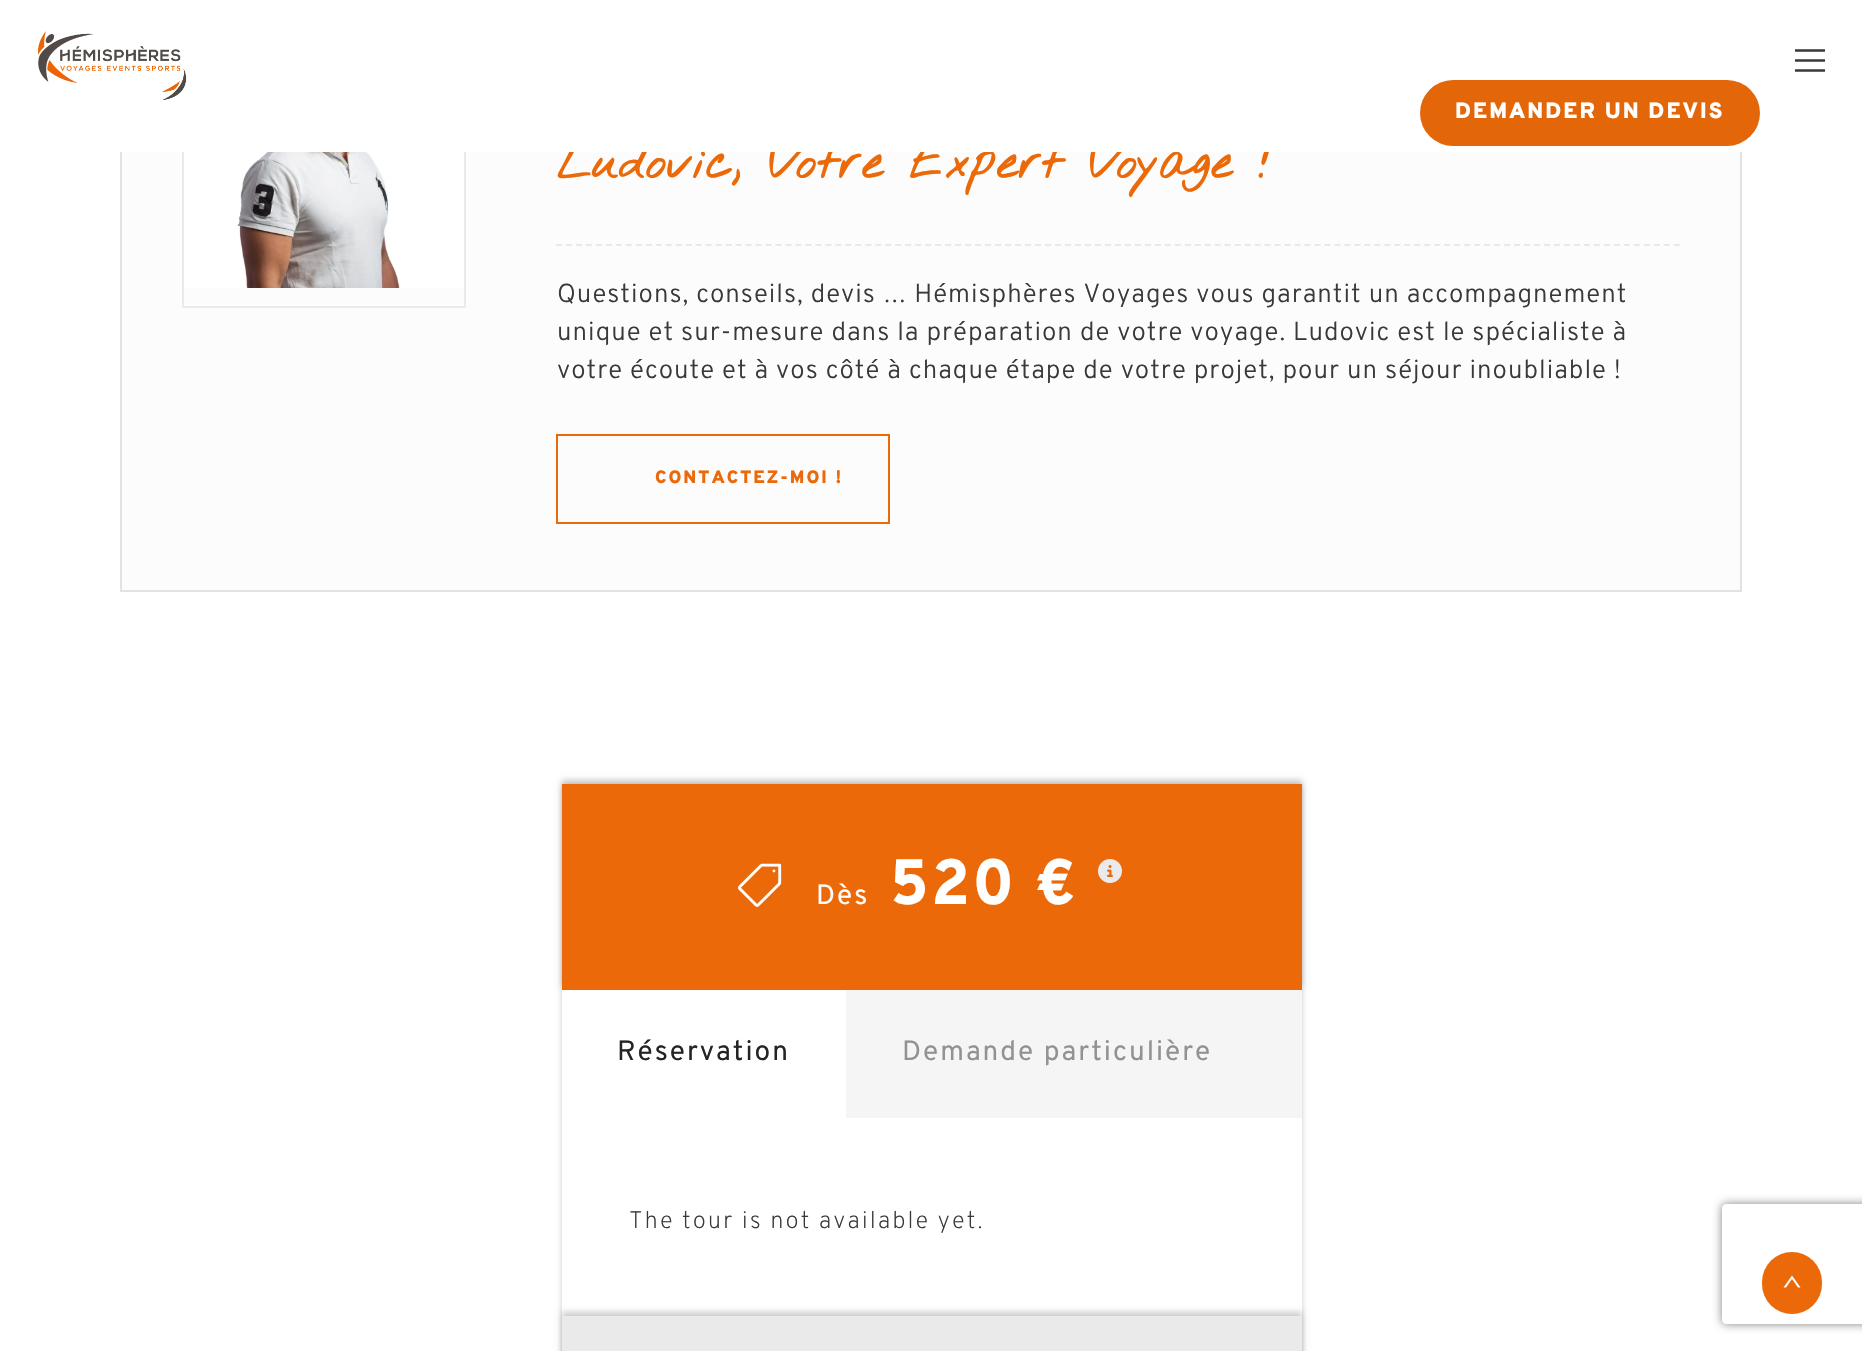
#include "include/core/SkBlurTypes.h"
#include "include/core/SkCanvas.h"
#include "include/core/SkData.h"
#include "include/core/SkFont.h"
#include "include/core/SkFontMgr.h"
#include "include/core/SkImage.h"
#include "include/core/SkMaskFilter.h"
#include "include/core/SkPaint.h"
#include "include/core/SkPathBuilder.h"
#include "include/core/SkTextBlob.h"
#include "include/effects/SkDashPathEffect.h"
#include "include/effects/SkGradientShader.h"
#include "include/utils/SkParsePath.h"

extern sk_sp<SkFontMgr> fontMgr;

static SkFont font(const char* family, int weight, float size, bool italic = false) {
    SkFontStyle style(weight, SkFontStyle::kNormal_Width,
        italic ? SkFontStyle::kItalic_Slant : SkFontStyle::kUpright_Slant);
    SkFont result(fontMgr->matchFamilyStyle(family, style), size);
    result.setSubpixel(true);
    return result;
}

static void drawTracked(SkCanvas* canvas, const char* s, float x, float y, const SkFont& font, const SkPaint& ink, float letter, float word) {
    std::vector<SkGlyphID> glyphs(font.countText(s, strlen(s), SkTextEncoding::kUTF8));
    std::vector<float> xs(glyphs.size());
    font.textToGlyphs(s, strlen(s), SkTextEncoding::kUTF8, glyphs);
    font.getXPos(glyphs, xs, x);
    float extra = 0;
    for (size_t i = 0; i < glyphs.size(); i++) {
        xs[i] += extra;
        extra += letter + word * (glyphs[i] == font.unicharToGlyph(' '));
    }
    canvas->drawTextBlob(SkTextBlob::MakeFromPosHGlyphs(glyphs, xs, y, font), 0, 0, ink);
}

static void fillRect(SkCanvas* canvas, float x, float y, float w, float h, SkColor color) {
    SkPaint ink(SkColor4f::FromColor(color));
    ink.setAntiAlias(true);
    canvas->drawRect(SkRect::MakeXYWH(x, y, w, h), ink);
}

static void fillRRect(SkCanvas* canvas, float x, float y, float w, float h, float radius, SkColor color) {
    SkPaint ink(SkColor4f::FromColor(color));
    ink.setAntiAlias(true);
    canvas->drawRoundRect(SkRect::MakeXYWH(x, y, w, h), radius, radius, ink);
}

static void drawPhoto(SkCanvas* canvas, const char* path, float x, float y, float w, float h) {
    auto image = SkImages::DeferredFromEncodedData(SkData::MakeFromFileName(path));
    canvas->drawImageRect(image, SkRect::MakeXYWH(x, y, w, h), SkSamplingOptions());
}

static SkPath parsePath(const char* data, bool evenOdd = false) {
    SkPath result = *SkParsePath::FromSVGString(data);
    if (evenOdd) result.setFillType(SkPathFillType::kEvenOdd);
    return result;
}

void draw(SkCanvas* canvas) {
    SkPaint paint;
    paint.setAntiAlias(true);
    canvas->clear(0xFFFFFFFF);
    fillRect(canvas, 122, 152, 1618, 438, 0xFFFCFCFC);
    paint.setStroke(true);
    paint.setStrokeWidth(2);
    paint.setColor(0xFFE2E2E2);
    canvas->drawRect(SkRect::MakeXYWH(121, 75, 1620, 516), paint);
    paint.setColor(0xFFEAEAEA);
    canvas->drawRoundRect(SkRect::MakeXYWH(183, 7, 282, 300), 1, 1, paint);
    SkFont font1 = font("Nothing You Could Do", 700, 48);
    paint.setStroke(false);
    paint.setColor(0xFFEB6909);
    drawTracked(canvas, "Ludovic, Votre Expert Voyage !", 557, 178, font1, paint, 1, 0);
    fillRect(canvas, 120, 6, 1622, 146, 0xFFFFFFFF);
    drawPhoto(canvas, "assets/img1.png", 38, 31, 149, 69);
    drawPhoto(canvas, "assets/img2.png", 1795, 49, 30, 23);
    fillRRect(canvas, 1420, 80, 340, 66, 33, 0xFFE36609);
    SkFont font2 = font("Overpass", 900, 22);
    paint.setColor(0xFFFFFFFF);
    drawTracked(canvas, "DEMANDER UN DEVIS", 1455, 118, font2, paint, 2, 0);
    drawPhoto(canvas, "assets/img3.png", 184, 152, 280, 136);
    paint.setStroke(true);
    paint.setColor(0xFFE9E9E9);
    paint.setPathEffect(SkDashPathEffect::Make({{6, 3.98f}}, 0));
    canvas->drawPath(parsePath("M556 245H1680"), paint);
    paint.setPathEffect(nullptr);
    SkFont font3 = font("Overpass", 300, 26);
    paint.setStroke(false);
    paint.setColor(0xFF393939);
    drawTracked(canvas, "Questions, conseils, devis … Hémisphères Voyages vous garantit un accompagnement", 557, 302, font3, paint, 1, 0);
    drawTracked(canvas, "unique et sur-mesure dans la préparation de votre voyage. Ludovic est le spécialiste à", 557, 340, font3, paint, 1, 0);
    drawTracked(canvas, "votre écoute et à vos côté à chaque étape de votre projet, pour un séjour inoubliable !", 557, 378, font3, paint, 1, 0);
    paint.setStroke(true);
    paint.setColor(0xFFEB6909);
    canvas->drawRect(SkRect::MakeXYWH(557, 435, 332, 88), paint);
    SkFont font4 = font("Overpass", 900, 18);
    paint.setStroke(false);
    drawTracked(canvas, "CONTACTEZ-MOI !", 655, 483, font4, paint, 2, 0);
    paint.setColor(0x33000000);
    paint.setMaskFilter(SkMaskFilter::MakeBlur(kNormal_SkBlurStyle, 3));
    canvas->drawRect(SkRect::MakeXYWH(562, 786, 740, 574), paint);
    paint.setMaskFilter(nullptr);
    paint.setMaskFilter(SkMaskFilter::MakeBlur(kNormal_SkBlurStyle, 3));
    canvas->drawRect(SkRect::MakeXYWH(562, 780, 740, 206), paint);
    paint.setMaskFilter(nullptr);
    fillRect(canvas, 562, 784, 740, 206, 0xFFEB6909);
    drawPhoto(canvas, "assets/img4.png", 738, 863, 44, 44);
    SkFont font5 = font("Overpass", 400, 28);
    paint.setColor(0xFFFFFFFF);
    drawTracked(canvas, "Dès", 816, 904, font5, paint, 2, 0);
    SkFont font6 = font("Overpass", 800, 64);
    drawTracked(canvas, "520 €", 890, 904, font6, paint, 2, 0);
    drawPhoto(canvas, "assets/img5.png", 1098, 859, 24, 24);
    fillRect(canvas, 562, 1118, 740, 198, 0xFFFFFFFF);
    fillRect(canvas, 846, 990, 456, 128, 0xFFF5F5F5);
    fillRect(canvas, 562, 990, 284, 128, 0xFFFFFFFF);
    paint.setColor(0xFF242424);
    drawTracked(canvas, "Réservation", 617, 1060, font5, paint, 2, 0);
    paint.setColor(0xFF929292);
    drawTracked(canvas, "Demande particulière", 902, 1060, font5, paint, 2, 0);
    SkFont font7 = font("Overpass", 200, 24);
    paint.setColor(0xFF393939);
    drawTracked(canvas, "The tour is not available yet.", 629, 1228, font7, paint, 2, 0);
    paint.setColor(0x33000000);
    paint.setMaskFilter(SkMaskFilter::MakeBlur(kNormal_SkBlurStyle, 3));
    canvas->drawRect(SkRect::MakeXYWH(562, 1312, 740, 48), paint);
    paint.setMaskFilter(nullptr);
    fillRect(canvas, 562, 1316, 740, 35, 0xFFEAEAEA);
    canvas->save();
    canvas->clipPath(parsePath("M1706 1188H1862V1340H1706ZM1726 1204H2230C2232 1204 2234 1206 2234 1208V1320C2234 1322 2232 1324 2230 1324H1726C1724 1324 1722 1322 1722 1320V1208C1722 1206 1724 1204 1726 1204Z", true), true);
    paint.setColor(0xFF808080);
    paint.setMaskFilter(SkMaskFilter::MakeBlur(kNormal_SkBlurStyle, 5));
    canvas->drawRoundRect(SkRect::MakeXYWH(1722, 1204, 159, 120), 4, 4, paint);
    paint.setMaskFilter(nullptr);
    canvas->restore();
    fillRRect(canvas, 1762, 1252, 60, 62, 30, 0xFFEB6909);
    paint.setColor(0xFFFFFFFF);
    canvas->drawPath(parsePath("M1783.5 1287.5H1786L1792 1279L1798 1287.5H1800.5L1792 1275.5Z"), paint);
}
